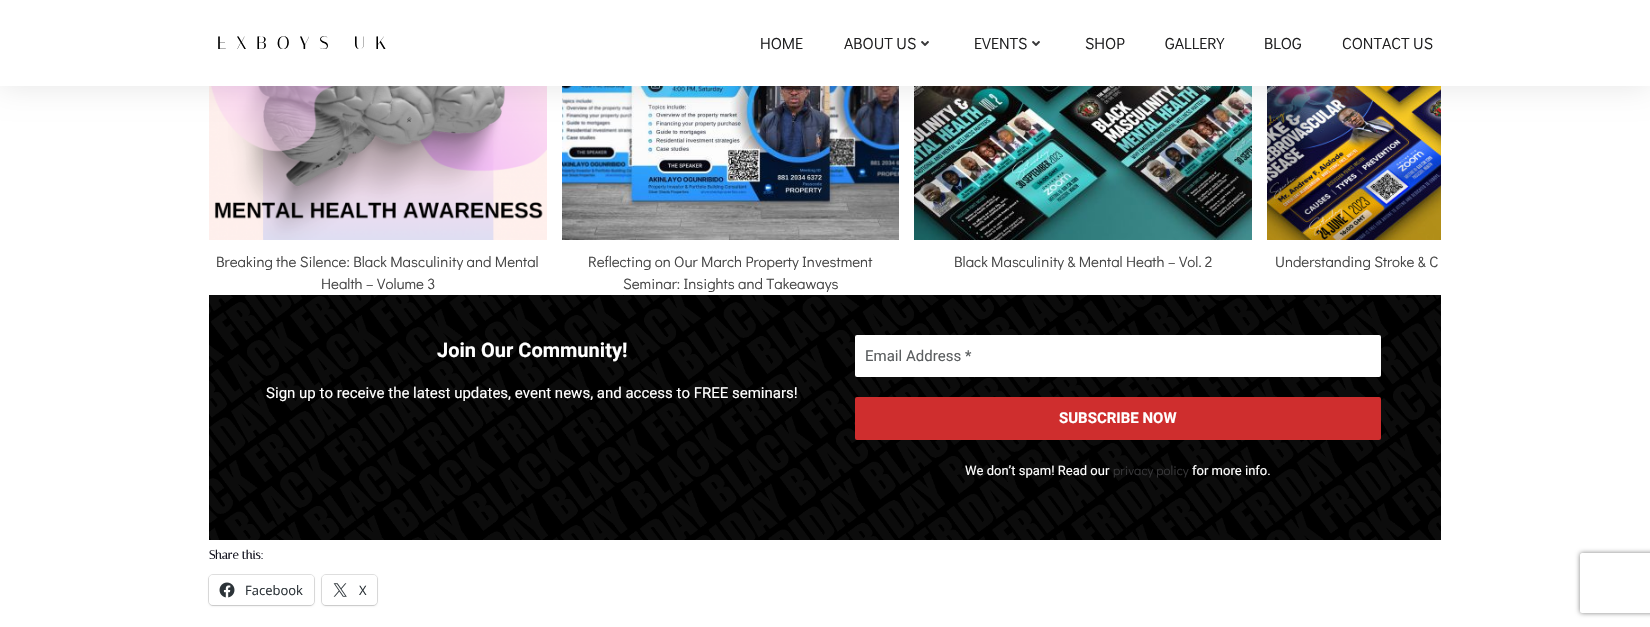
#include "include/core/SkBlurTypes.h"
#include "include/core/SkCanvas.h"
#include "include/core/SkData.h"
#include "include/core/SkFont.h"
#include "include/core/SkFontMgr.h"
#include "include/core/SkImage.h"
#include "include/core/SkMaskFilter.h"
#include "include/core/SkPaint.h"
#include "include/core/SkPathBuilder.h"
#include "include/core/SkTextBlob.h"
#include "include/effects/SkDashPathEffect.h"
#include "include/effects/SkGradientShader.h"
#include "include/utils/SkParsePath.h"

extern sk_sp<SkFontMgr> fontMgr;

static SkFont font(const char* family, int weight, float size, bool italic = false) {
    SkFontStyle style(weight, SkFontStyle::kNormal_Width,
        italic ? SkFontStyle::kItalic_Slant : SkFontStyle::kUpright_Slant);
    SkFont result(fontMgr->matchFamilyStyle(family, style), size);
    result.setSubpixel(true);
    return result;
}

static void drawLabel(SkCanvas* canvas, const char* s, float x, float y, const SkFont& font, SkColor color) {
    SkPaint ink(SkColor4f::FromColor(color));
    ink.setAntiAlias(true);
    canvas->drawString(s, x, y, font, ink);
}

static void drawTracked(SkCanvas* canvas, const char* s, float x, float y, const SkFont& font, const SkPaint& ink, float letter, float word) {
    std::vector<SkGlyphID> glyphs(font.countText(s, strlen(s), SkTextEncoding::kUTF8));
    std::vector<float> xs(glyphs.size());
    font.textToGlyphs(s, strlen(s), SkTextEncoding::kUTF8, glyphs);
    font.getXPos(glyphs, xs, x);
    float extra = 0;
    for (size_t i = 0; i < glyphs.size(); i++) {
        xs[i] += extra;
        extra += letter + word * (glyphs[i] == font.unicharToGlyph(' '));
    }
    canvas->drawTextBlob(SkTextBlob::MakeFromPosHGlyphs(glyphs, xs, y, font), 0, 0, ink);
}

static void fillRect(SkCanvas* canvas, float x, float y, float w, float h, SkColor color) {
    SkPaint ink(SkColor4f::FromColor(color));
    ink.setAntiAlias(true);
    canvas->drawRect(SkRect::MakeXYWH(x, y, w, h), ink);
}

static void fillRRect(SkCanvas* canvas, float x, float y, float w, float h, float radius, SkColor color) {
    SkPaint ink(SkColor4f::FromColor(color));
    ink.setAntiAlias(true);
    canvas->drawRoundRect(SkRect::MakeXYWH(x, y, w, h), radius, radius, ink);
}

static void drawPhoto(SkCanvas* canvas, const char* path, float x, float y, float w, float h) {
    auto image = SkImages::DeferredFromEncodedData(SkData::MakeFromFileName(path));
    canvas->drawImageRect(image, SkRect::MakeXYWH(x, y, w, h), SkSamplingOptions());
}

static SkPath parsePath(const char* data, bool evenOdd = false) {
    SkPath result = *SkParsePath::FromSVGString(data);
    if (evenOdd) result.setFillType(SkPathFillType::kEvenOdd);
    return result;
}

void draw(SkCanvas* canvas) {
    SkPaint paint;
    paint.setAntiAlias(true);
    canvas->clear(0xFFFFFFFF);
    drawPhoto(canvas, "assets/img2.png", 209, 86, 338, 154);
    drawPhoto(canvas, "assets/img3.png", 562, 86, 337, 154);
    drawPhoto(canvas, "assets/img4.png", 914, 86, 338, 154);
    drawPhoto(canvas, "assets/img5.png", 1267, 86, 174, 154);
    paint.setColor(0x1A000000);
    paint.setMaskFilter(SkMaskFilter::MakeBlur(kNormal_SkBlurStyle, 15));
    canvas->drawRect(SkRect::MakeXYWH(0, 0, 1650, 86), paint);
    paint.setMaskFilter(nullptr);
    fillRect(canvas, 0, 0, 1650, 86, 0xFFFFFFFF);
    SkFont font1 = font("Italiana", 400, 18);
    paint.setColor(0xFF000000);
    drawTracked(canvas, "EXBOYS UK", 217, 49, font1, paint, 10, 0);
    SkFont font2 = font("Didact Gothic", 400, 16);
    drawLabel(canvas, "HOME", 760, 49, font2, 0xFF1F1F20);
    drawLabel(canvas, "ABOUT US", 844, 49, font2, 0xFF1F1F20);
    drawPhoto(canvas, "assets/img1.png", 921, 41, 8, 5);
    drawLabel(canvas, "EVENTS", 974, 49, font2, 0xFF1F1F20);
    drawPhoto(canvas, "assets/img1.png", 1032, 41, 8, 5);
    drawLabel(canvas, "SHOP", 1085, 49, font2, 0xFF1F1F20);
    drawLabel(canvas, "GALLERY", 1165, 49, font2, 0xFF1F1F20);
    drawLabel(canvas, "BLOG", 1264, 49, font2, 0xFF1F1F20);
    drawLabel(canvas, "CONTACT US", 1342, 49, font2, 0xFF1F1F20);
    SkFont font3 = font("Didact Gothic", 400, 15);
    drawLabel(canvas, "Breaking the Silence: Black Masculinity and Mental", 216, 267, font3, 0xFF474747);
    drawLabel(canvas, "Health – Volume 3", 321, 289, font3, 0xFF474747);
    drawLabel(canvas, "Reflecting on Our March Property Investment", 588, 267, font3, 0xFF474747);
    drawLabel(canvas, "Seminar: Insights and Takeaways", 623, 289, font3, 0xFF474747);
    drawLabel(canvas, "Black Masculinity & Mental Heath – Vol. 2", 954, 267, font3, 0xFF474747);
    drawLabel(canvas, "Understanding Stroke & C", 1275, 267, font3, 0xFF474747);
    drawPhoto(canvas, "assets/img6.png", 209, 295, 1232, 245);
    SkFont font4 = font("Heebo", 700, 20);
    drawLabel(canvas, "Join Our Community!", 437, 357, font4, 0xFFFFFFFF);
    SkFont font5 = font("Heebo", 400, 15);
    drawLabel(canvas, "Sign up to receive the latest updates, event news, and access to FREE seminars!", 266, 398, font5, 0xFFFFFFFF);
    fillRRect(canvas, 855, 335, 526, 42, 2, 0xFFFFFFFF);
    drawLabel(canvas, "Email Address *", 865, 361, font5, 0xFF5B5E60);
    fillRRect(canvas, 855, 397, 526, 43, 2, 0xFFCF2E2E);
    SkFont font6 = font("Heebo", 700, 15);
    drawLabel(canvas, "SUBSCRIBE NOW", 1059, 423, font6, 0xFFFFFFFF);
    SkFont font7 = font("Heebo", 400, 13);
    drawLabel(canvas, "We don’t spam! Read our", 965, 475, font7, 0xFFFFFFFF);
    SkFont font8 = font("Didact Gothic", 400, 13);
    drawLabel(canvas, "privacy policy", 1113, 475, font8, 0xFF373739);
    drawLabel(canvas, "for more info.", 1192, 475, font7, 0xFFFFFFFF);
    SkFont font9 = font("Italiana", 700, 12);
    drawLabel(canvas, "Share this:", 209, 559, font9, 0xFF141420);
    paint.setStroke(true);
    paint.setStrokeWidth(1);
    paint.setColor(0xFFE0E0E0);
    canvas->drawRoundRect(SkRect::MakeXYWH(208.5f, 574.5f, 106, 31), 4.5f, 4.5f, paint);
    paint.setStroke(false);
    paint.setColor(0x1F000000);
    paint.setMaskFilter(SkMaskFilter::MakeBlur(kNormal_SkBlurStyle, 1));
    canvas->drawRoundRect(SkRect::MakeXYWH(209, 576, 105, 30), 4, 4, paint);
    paint.setMaskFilter(nullptr);
    fillRRect(canvas, 209, 575, 105, 30, 4, 0xFFFFFFFF);
    drawPhoto(canvas, "assets/img7.png", 219, 582, 16, 16);
    SkFont font10 = font("Open Sans", 400, 13);
    drawLabel(canvas, "Facebook", 245, 595, font10, 0xFF2C3338);
    paint.setStroke(true);
    paint.setColor(0xFFE0E0E0);
    canvas->drawRoundRect(SkRect::MakeXYWH(321.5f, 574.5f, 56, 31), 4.5f, 4.5f, paint);
    paint.setStroke(false);
    paint.setColor(0x1F000000);
    paint.setMaskFilter(SkMaskFilter::MakeBlur(kNormal_SkBlurStyle, 1));
    canvas->drawRoundRect(SkRect::MakeXYWH(322, 576, 55, 30), 4, 4, paint);
    paint.setMaskFilter(nullptr);
    fillRRect(canvas, 322, 575, 55, 30, 4, 0xFFFFFFFF);
    drawPhoto(canvas, "assets/img8.png", 333, 583, 14, 14);
    drawLabel(canvas, "X", 359, 595, font10, 0xFF2C3338);
    canvas->save();
    canvas->clipPath(parsePath("M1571 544H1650V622H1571ZM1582 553H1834C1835 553 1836 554 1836 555V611C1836 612 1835 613 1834 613H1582C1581 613 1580 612 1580 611V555C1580 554 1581 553 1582 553Z", true), true);
    paint.setColor(0xFF808080);
    paint.setMaskFilter(SkMaskFilter::MakeBlur(kNormal_SkBlurStyle, 2.5f));
    canvas->drawRoundRect(SkRect::MakeXYWH(1580, 553, 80, 60), 2, 2, paint);
    paint.setMaskFilter(nullptr);
    canvas->restore();
}
